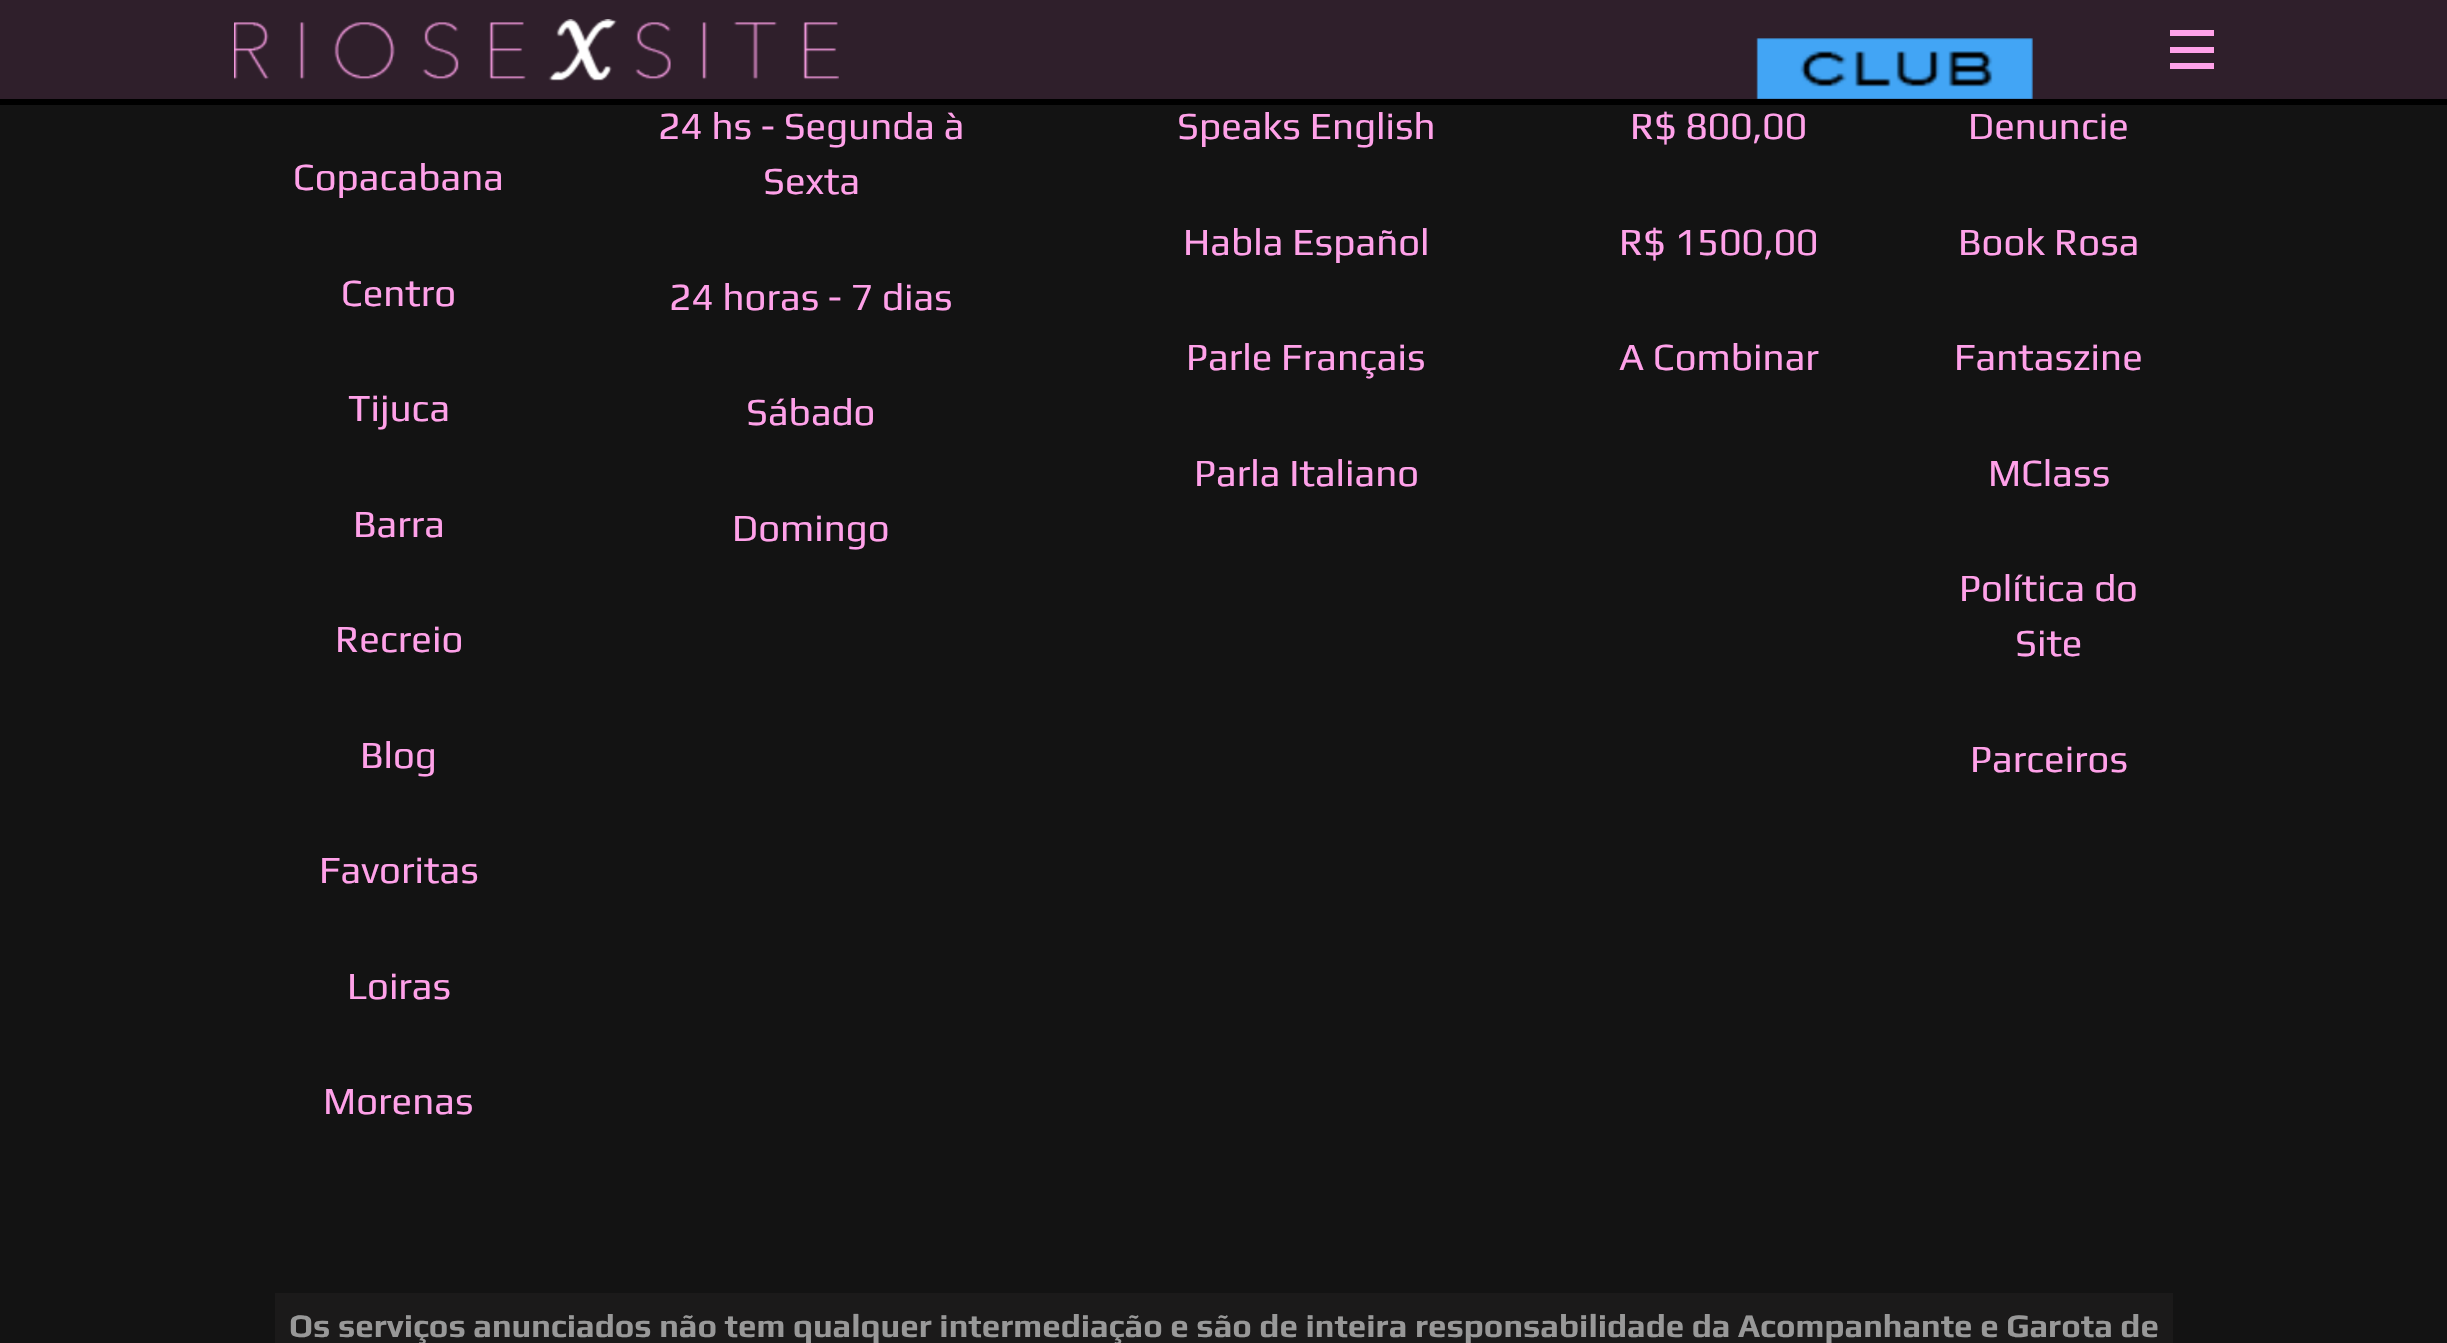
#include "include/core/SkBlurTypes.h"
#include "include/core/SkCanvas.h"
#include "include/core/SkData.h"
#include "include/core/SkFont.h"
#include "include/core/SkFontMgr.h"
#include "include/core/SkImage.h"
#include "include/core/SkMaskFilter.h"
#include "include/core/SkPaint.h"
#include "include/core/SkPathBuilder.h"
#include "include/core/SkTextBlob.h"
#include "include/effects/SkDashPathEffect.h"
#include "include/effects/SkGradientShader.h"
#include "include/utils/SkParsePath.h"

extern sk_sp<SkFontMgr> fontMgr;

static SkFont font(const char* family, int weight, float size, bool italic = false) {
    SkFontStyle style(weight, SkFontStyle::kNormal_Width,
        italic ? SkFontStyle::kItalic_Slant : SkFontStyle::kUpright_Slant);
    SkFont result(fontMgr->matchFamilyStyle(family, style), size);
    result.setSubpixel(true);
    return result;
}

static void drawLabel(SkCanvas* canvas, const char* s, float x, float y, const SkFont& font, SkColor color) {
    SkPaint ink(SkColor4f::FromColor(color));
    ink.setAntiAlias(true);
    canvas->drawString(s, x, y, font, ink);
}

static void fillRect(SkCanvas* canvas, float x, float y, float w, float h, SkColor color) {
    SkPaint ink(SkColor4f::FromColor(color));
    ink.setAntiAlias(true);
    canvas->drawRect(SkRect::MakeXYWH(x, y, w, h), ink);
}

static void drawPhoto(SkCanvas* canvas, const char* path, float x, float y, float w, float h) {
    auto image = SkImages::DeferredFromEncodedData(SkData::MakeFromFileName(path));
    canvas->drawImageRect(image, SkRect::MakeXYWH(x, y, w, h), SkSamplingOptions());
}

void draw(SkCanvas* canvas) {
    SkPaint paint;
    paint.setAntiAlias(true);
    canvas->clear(0xFF131313);
    fillRect(canvas, 0, 0, 2447, 99, 0xFF2F1F2B);
    fillRect(canvas, 0, 99, 2447, 6, 0xFF000000);
    drawPhoto(canvas, "assets/img1.png", 234, 19, 605, 62);
    drawPhoto(canvas, "assets/img2.png", 1756, 38, 277, 61);
    fillRect(canvas, 2170, 30, 44, 6, 0xFFFFA1E9);
    fillRect(canvas, 2170, 47, 44, 6, 0xFFFFA1E9);
    fillRect(canvas, 2170, 63, 44, 6, 0xFFFFA1E9);
    SkFont font1 = font("Play", 400, 38.5f);
    drawLabel(canvas, "Copacabana", 293, 190, font1, 0xFFFFA1E9);
    drawLabel(canvas, "Centro", 341, 306, font1, 0xFFFFA1E9);
    drawLabel(canvas, "Tijuca", 348, 421, font1, 0xFFFFA1E9);
    drawLabel(canvas, "Barra", 353, 537, font1, 0xFFFFA1E9);
    drawLabel(canvas, "Recreio", 335, 652, font1, 0xFFFFA1E9);
    drawLabel(canvas, "Blog", 360, 768, font1, 0xFFFFA1E9);
    drawLabel(canvas, "Favoritas", 319, 883, font1, 0xFFFFA1E9);
    drawLabel(canvas, "Loiras", 347, 999, font1, 0xFFFFA1E9);
    drawLabel(canvas, "Morenas", 323, 1114, font1, 0xFFFFA1E9);
    drawLabel(canvas, "24 hs - Segunda à", 658, 139, font1, 0xFFFFA1E9);
    drawLabel(canvas, "Sexta", 763, 194, font1, 0xFFFFA1E9);
    drawLabel(canvas, "24 horas - 7 dias", 669, 310, font1, 0xFFFFA1E9);
    drawLabel(canvas, "Sábado", 746, 425, font1, 0xFFFFA1E9);
    drawLabel(canvas, "Domingo", 732, 541, font1, 0xFFFFA1E9);
    drawLabel(canvas, "Speaks English", 1177, 139, font1, 0xFFFFA1E9);
    drawLabel(canvas, "Habla Español", 1183, 255, font1, 0xFFFFA1E9);
    drawLabel(canvas, "Parle Français", 1186, 370, font1, 0xFFFFA1E9);
    drawLabel(canvas, "Parla Italiano", 1194, 486, font1, 0xFFFFA1E9);
    drawLabel(canvas, "R$ 800,00", 1630, 139, font1, 0xFFFFA1E9);
    drawLabel(canvas, "R$ 1500,00", 1619, 255, font1, 0xFFFFA1E9);
    drawLabel(canvas, "A Combinar", 1619, 370, font1, 0xFFFFA1E9);
    drawLabel(canvas, "Denuncie", 1968, 139, font1, 0xFFFFA1E9);
    drawLabel(canvas, "Book Rosa", 1958, 255, font1, 0xFFFFA1E9);
    drawLabel(canvas, "Fantaszine", 1954, 370, font1, 0xFFFFA1E9);
    drawLabel(canvas, "MClass", 1988, 486, font1, 0xFFFFA1E9);
    drawLabel(canvas, "Política do", 1959, 601, font1, 0xFFFFA1E9);
    drawLabel(canvas, "Site", 2015, 656, font1, 0xFFFFA1E9);
    drawLabel(canvas, "Parceiros", 1970, 772, font1, 0xFFFFA1E9);
    fillRect(canvas, 275, 1293, 1898, 50, 0xFF1B1A1A);
    SkFont font2 = font("Play", 700, 33);
    drawLabel(canvas, "Os serviços anunciados não tem qualquer intermediação e são de inteira responsabilidade da Acompanhante e Garota de", 289, 1337, font2, 0xFF989898);
}
